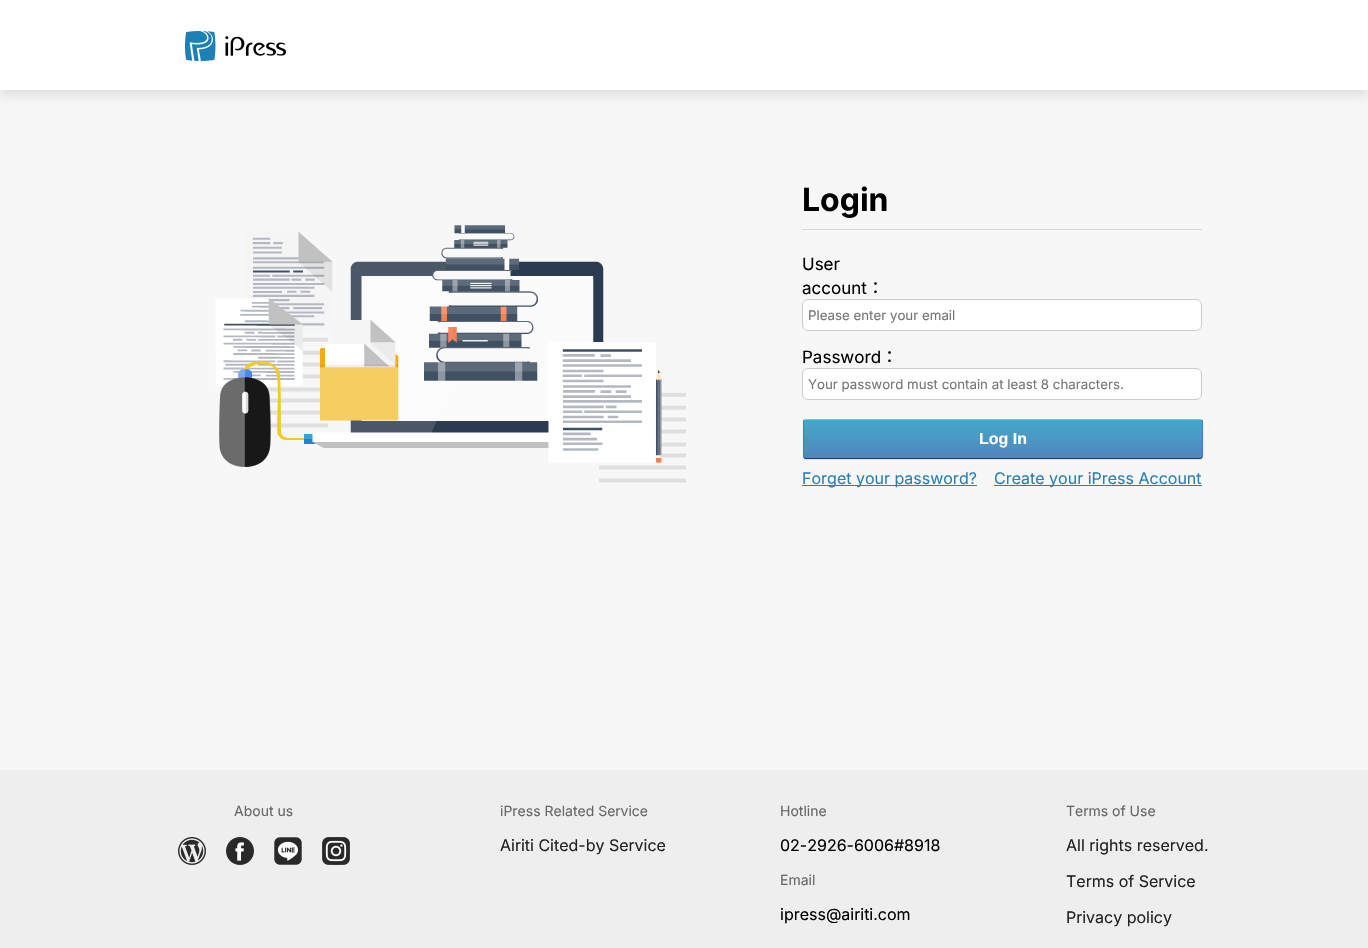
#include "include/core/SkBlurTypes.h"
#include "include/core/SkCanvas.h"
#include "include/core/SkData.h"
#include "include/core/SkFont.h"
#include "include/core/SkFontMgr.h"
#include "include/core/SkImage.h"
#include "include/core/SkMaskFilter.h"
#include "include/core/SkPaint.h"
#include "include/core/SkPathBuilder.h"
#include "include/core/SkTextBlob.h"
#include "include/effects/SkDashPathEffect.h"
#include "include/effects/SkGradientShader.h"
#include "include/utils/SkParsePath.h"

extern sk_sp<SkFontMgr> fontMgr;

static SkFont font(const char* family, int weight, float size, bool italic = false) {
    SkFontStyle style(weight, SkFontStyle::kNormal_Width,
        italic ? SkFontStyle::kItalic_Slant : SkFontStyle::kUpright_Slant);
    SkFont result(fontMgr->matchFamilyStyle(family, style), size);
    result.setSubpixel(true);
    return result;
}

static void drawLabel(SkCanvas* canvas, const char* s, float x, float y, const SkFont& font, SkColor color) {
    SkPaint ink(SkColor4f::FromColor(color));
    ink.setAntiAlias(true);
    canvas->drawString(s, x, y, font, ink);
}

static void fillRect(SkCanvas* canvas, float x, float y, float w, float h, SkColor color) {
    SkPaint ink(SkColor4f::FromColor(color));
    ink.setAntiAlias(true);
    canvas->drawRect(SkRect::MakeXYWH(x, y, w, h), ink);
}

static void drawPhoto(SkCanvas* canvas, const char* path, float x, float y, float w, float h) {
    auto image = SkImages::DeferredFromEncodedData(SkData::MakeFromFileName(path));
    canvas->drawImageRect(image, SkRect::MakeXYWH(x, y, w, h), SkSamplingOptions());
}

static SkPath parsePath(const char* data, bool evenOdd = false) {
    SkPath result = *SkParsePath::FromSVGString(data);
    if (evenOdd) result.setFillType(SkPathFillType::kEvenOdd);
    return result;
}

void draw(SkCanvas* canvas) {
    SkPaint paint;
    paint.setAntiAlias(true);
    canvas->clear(0xFFF7F7F7);
    paint.setColor(0x1A000000);
    paint.setMaskFilter(SkMaskFilter::MakeBlur(kNormal_SkBlurStyle, 5));
    canvas->drawRect(SkRect::MakeXYWH(0, 5, 1368, 90), paint);
    paint.setMaskFilter(nullptr);
    fillRect(canvas, 0, 0, 1368, 90, 0xFFFFFFFF);
    drawPhoto(canvas, "assets/img1.png", 185, 31, 101, 30);
    drawPhoto(canvas, "assets/img2.png", 215, 225, 471, 258);
    fillRect(canvas, 802, 229, 400, 1, 0xFFD9D9D9);
    SkFont font1 = font("Inter", 700, 32);
    drawLabel(canvas, "Login", 802, 211, font1, 0xFF000000);
    SkFont font2 = font("Inter", 400, 17);
    drawLabel(canvas, "User", 802, 270, font2, 0xFF000000);
    drawLabel(canvas, "account", 802, 294, font2, 0xFF000000);
    SkFont font3 = font("Noto Sans TC", 400, 17);
    drawLabel(canvas, "：", 867, 294, font3, 0xFF000000);
    paint.setColor(0xFFFFFFFF);
    canvas->drawRoundRect(SkRect::MakeXYWH(802.5f, 299.5f, 399, 31), 5.5f, 5.5f, paint);
    paint.setStroke(true);
    paint.setStrokeWidth(1);
    paint.setColor(0xFFCCCCCC);
    canvas->drawRoundRect(SkRect::MakeXYWH(802.5f, 299.5f, 399, 31), 5.5f, 5.5f, paint);
    SkFont font4 = font("Inter", 400, 13.3f);
    drawLabel(canvas, "Please enter your email", 808, 320, font4, 0xFF757575);
    drawLabel(canvas, "Password", 802, 363, font2, 0xFF000000);
    drawLabel(canvas, "：", 881, 363, font3, 0xFF000000);
    paint.setStroke(false);
    paint.setColor(0xFFFFFFFF);
    canvas->drawRoundRect(SkRect::MakeXYWH(802.5f, 368.5f, 399, 31), 5.5f, 5.5f, paint);
    paint.setStroke(true);
    paint.setColor(0xFFCCCCCC);
    canvas->drawRoundRect(SkRect::MakeXYWH(802.5f, 368.5f, 399, 31), 5.5f, 5.5f, paint);
    drawLabel(canvas, "Your password must contain at least 8 characters.", 808, 389, font4, 0xFF757575);
    paint.setStroke(false);
    paint.setColor(0x1A000000);
    paint.setMaskFilter(SkMaskFilter::MakeBlur(kNormal_SkBlurStyle, 0.5f));
    canvas->drawRoundRect(SkRect::MakeXYWH(803, 420, 400, 40), 3, 3, paint);
    paint.setMaskFilter(nullptr);
    canvas->save();
    canvas->clipPath(parsePath("M806 419H1200C1201.5 419 1203 420.5 1203 422V456C1203 457.5 1201.5 459 1200 459H806C804.5 459 803 457.5 803 456V422C803 420.5 804.5 419 806 419Z"), true);
    {
        const SkColor colors[] = {0xFF43A8C9, 0xFF5285BF};
        const float stops[] = {0, 1};
        const SkPoint ends[] = {{1003, 420}, {1003, 458}};
        paint.setShader(SkGradientShader::MakeLinear(ends, colors, stops, 2, SkTileMode::kClamp));
        paint.setAlpha(255);
    }
    canvas->drawRect(SkRect::MakeXYWH(803, 420, 400, 38), paint);
    canvas->restore();
    paint.setStroke(true);
    paint.setShader(nullptr);
    paint.setColor(0xFF74C4D5);
    canvas->drawPath(parsePath("M804 420L806 419.5H1200L1202 420"), paint);
    paint.setColor(0xFF3C80CC);
    canvas->drawPath(parsePath("M1202 420L1202.5 422V456L1202 458"), paint);
    paint.setColor(0xFF13437A);
    canvas->drawPath(parsePath("M1202 458L1200 458.5H806L804 458"), paint);
    paint.setColor(0xFF3C80CC);
    canvas->drawPath(parsePath("M804 458L803.5 456V422L804 420"), paint);
    SkFont font5 = font("Liberation Sans", 700, 16);
    drawLabel(canvas, "Log In", 979, 444, font5, 0xFFFFFFFF);
    fillRect(canvas, 802, 485, 175, 1, 0xFF2580B8);
    SkFont font6 = font("Inter", 400, 16);
    drawLabel(canvas, "Forget your password?", 802, 484, font6, 0xFF2580B8);
    fillRect(canvas, 994, 485, 208, 1, 0xFF2580B8);
    drawLabel(canvas, "Create your iPress Account", 994, 484, font6, 0xFF2580B8);
    fillRect(canvas, 0, 770, 1368, 178, 0xFFEEEEEE);
    SkFont font7 = font("Inter", 400, 14);
    drawLabel(canvas, "About us", 234, 816, font7, 0xFF666666);
    drawPhoto(canvas, "assets/img3.png", 178, 837, 28, 28);
    drawPhoto(canvas, "assets/img4.png", 226, 837, 28, 28);
    drawPhoto(canvas, "assets/img5.png", 274, 837, 28, 28);
    drawPhoto(canvas, "assets/img6.png", 322, 837, 28, 28);
    drawLabel(canvas, "iPress Related Service", 500, 816, font7, 0xFF666666);
    drawLabel(canvas, "Airiti Cited-by Service", 500, 851, font6, 0xFF222222);
    drawLabel(canvas, "Hotline", 780, 816, font7, 0xFF666666);
    drawLabel(canvas, "02-2926-6006#8918", 780, 851, font6, 0xFF000000);
    drawLabel(canvas, "Email", 780, 885, font7, 0xFF666666);
    drawLabel(canvas, "ipress@airiti.com", 780, 920, font6, 0xFF000000);
    drawLabel(canvas, "Terms of Use", 1066, 816, font7, 0xFF666666);
    drawLabel(canvas, "All rights reserved.", 1066, 851, font6, 0xFF222222);
    drawLabel(canvas, "Terms of Service", 1066, 887, font6, 0xFF222222);
    drawLabel(canvas, "Privacy policy", 1066, 923, font6, 0xFF222222);
}
